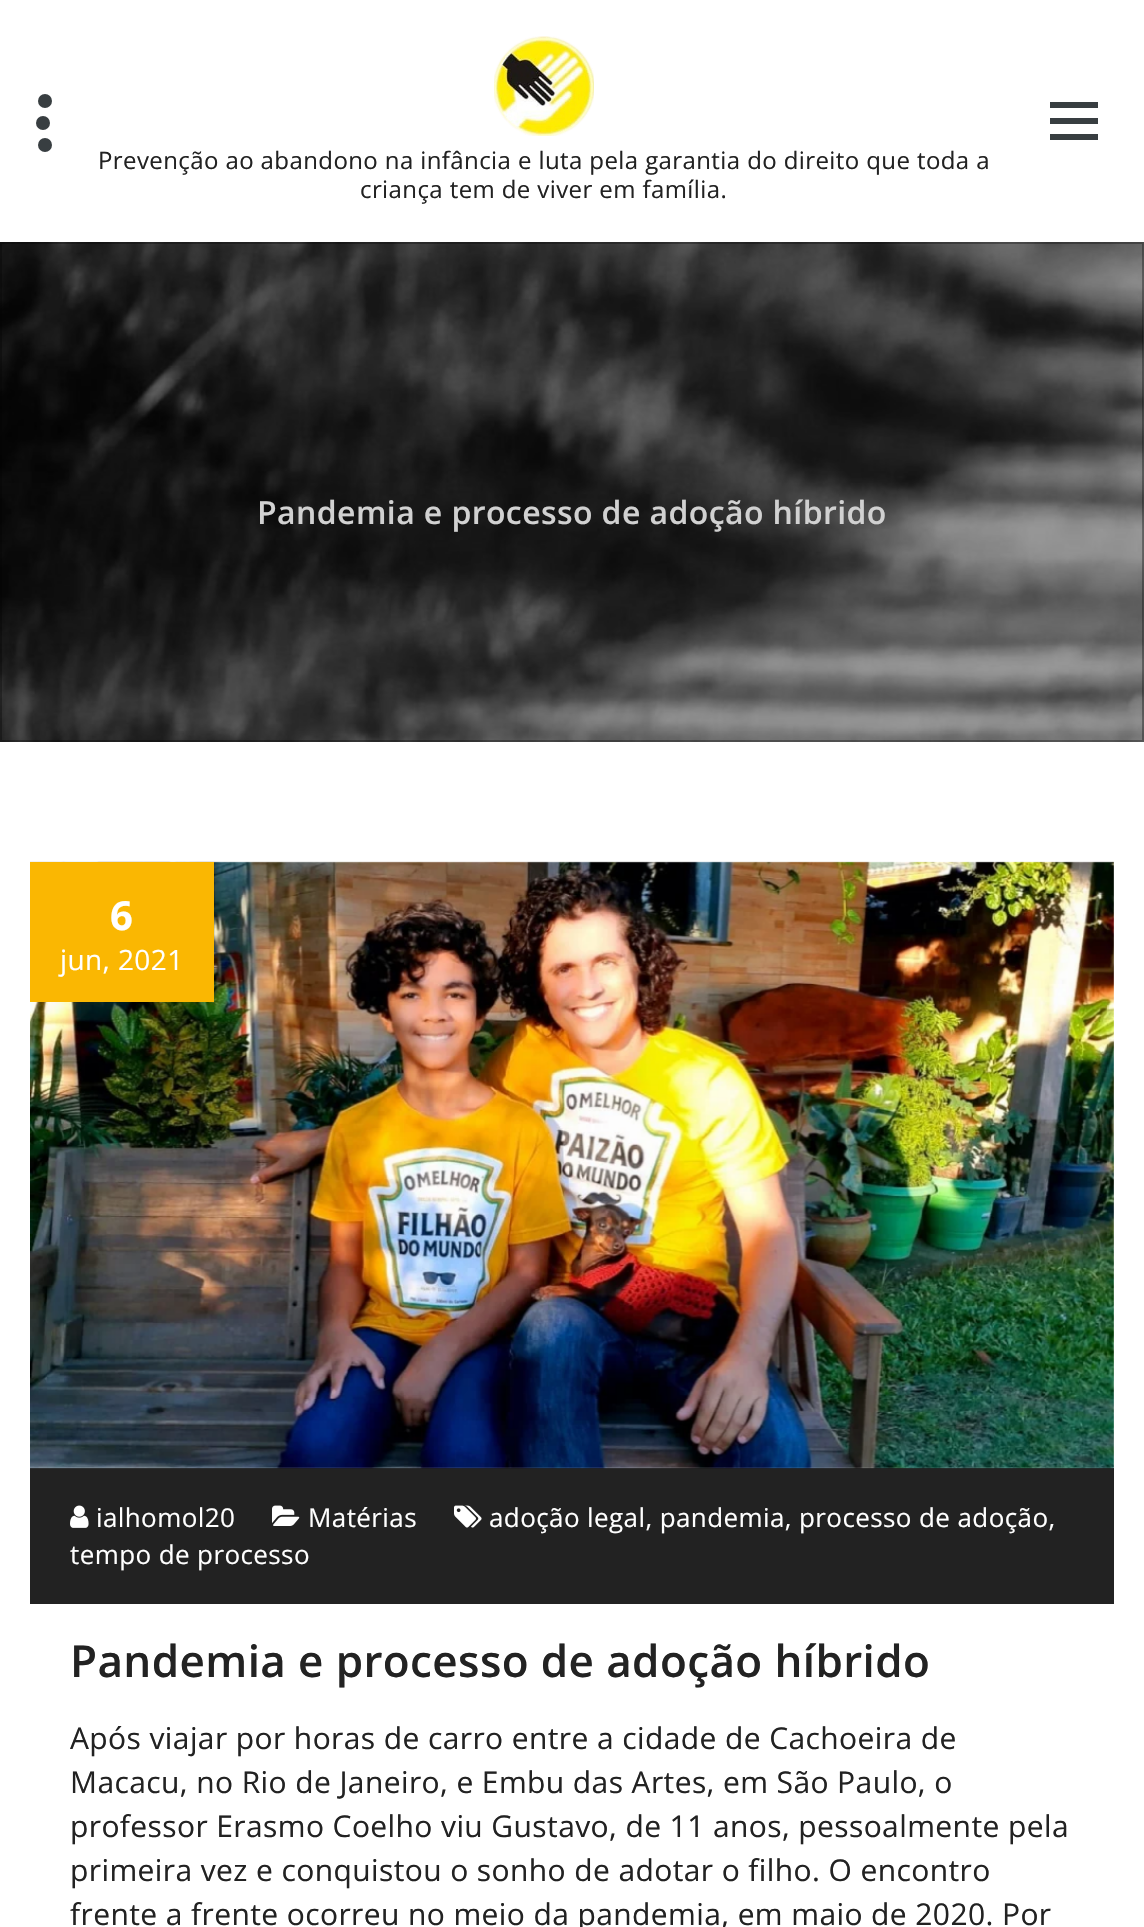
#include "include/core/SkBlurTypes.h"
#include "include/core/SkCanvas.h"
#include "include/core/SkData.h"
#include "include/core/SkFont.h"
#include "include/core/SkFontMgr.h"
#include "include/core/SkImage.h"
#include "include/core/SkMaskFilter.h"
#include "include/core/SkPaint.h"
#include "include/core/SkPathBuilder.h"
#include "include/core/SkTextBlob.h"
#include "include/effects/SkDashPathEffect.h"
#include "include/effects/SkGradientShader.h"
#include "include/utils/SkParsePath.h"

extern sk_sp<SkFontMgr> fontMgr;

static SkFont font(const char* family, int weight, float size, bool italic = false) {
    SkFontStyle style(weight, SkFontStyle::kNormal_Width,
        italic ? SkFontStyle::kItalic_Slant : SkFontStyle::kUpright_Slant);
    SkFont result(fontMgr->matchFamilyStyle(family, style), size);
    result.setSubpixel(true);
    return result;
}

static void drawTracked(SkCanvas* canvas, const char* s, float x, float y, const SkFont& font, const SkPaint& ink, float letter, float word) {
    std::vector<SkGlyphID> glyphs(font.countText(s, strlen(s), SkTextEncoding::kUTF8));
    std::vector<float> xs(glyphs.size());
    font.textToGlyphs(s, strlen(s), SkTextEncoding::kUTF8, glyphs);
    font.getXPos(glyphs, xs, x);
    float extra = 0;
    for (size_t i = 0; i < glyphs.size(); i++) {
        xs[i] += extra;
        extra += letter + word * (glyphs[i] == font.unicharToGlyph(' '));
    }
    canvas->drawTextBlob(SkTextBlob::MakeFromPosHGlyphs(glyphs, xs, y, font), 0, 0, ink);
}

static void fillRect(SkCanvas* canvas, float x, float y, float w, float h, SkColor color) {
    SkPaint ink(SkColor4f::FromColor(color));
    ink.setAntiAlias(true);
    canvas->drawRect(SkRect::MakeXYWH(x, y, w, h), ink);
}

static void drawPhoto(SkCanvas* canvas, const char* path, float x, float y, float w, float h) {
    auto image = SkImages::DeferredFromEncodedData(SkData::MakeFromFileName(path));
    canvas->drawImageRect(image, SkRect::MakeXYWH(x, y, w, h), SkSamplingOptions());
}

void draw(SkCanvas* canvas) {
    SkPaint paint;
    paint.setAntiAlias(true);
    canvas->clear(0xFFFFFFFF);
    paint.setColor(0xFF383E41);
    canvas->drawCircle(43, 123, 7, paint);
    canvas->drawCircle(45, 101, 7, paint);
    canvas->drawCircle(45, 145, 7, paint);
    fillRect(canvas, 1050, 102, 48, 6, 0xFF383E41);
    fillRect(canvas, 1050, 118, 48, 6, 0xFF383E41);
    fillRect(canvas, 1050, 134, 48, 6, 0xFF383E41);
    drawPhoto(canvas, "assets/img1.png", 494, 36, 100, 100);
    SkFont font1 = font("Open Sans", 400, 24);
    paint.setColor(0xFF222222);
    drawTracked(canvas, "Prevenção ao abandono na infância e luta pela garantia do direito que toda a", 98, 169, font1, paint, 0.4f, 0);
    drawTracked(canvas, "criança tem de viver em família.", 360, 198, font1, paint, 0.4f, 0);
    fillRect(canvas, 1143, 242, 1, 500, 0xFF7A7A7A);
    drawPhoto(canvas, "assets/img2.png", 0, 242, 1144, 500);
    paint.setStroke(true);
    paint.setStrokeWidth(2);
    paint.setColor(0x52000000);
    canvas->drawRect(SkRect::MakeXYWH(1, 243, 1142, 498), paint);
    SkFont font2 = font("Open Sans", 600, 32);
    paint.setStroke(false);
    paint.setColor(0xFFD1D1D1);
    drawTracked(canvas, "Pandemia e processo de adoção híbrido", 257, 524, font2, paint, 0.4f, 0);
    fillRect(canvas, 30, 1468, 1084, 136, 0xFF222222);
    drawPhoto(canvas, "assets/img3.png", 30, 861, 1084, 608);
    fillRect(canvas, 30, 862, 184, 140, 0xFFFAB702);
    SkFont font3 = font("Open Sans", 700, 40);
    paint.setColor(0xFFFFFFFF);
    drawTracked(canvas, "6", 110, 930, font3, paint, 0.4f, 0);
    SkFont font4 = font("Open Sans", 400, 28);
    drawTracked(canvas, "jun, 2021", 60, 970, font4, paint, 0.4f, 0);
    drawPhoto(canvas, "assets/img4.png", 454, 1505, 28, 23);
    SkFont font5 = font("Open Sans", 400, 26);
    drawTracked(canvas, "adoção legal, pandemia, processo de adoção,", 489, 1527, font5, paint, 0.4f, 0);
    drawTracked(canvas, "tempo de processo", 70, 1564, font5, paint, 0.4f, 0);
    drawPhoto(canvas, "assets/img5.png", 70, 1505, 19, 23);
    drawTracked(canvas, "ialhomol20", 96, 1527, font5, paint, 0.4f, 0);
    drawPhoto(canvas, "assets/img6.png", 272, 1505, 28, 21);
    drawTracked(canvas, "Matérias", 308, 1527, font5, paint, 0.4f, 0);
    SkFont font6 = font("Open Sans", 600, 44);
    paint.setColor(0xFF222222);
    drawTracked(canvas, "Pandemia e processo de adoção híbrido", 70, 1677, font6, paint, 0.4f, 0);
    SkFont font7 = font("Open Sans", 400, 30);
    drawTracked(canvas, "Após viajar por horas de carro entre a cidade de Cachoeira de", 70, 1749, font7, paint, 0.4f, 0);
    drawTracked(canvas, "Macacu, no Rio de Janeiro, e Embu das Artes, em São Paulo, o", 70, 1793, font7, paint, 0.4f, 0);
    drawTracked(canvas, "professor Erasmo Coelho viu Gustavo, de 11 anos, pessoalmente pela", 70, 1837, font7, paint, 0.4f, 0);
    drawTracked(canvas, "primeira vez e conquistou o sonho de adotar o filho. O encontro", 70, 1881, font7, paint, 0.4f, 0);
    drawTracked(canvas, "frente a frente ocorreu no meio da pandemia, em maio de 2020. Por", 70, 1925, font7, paint, 0.4f, 0);
}
